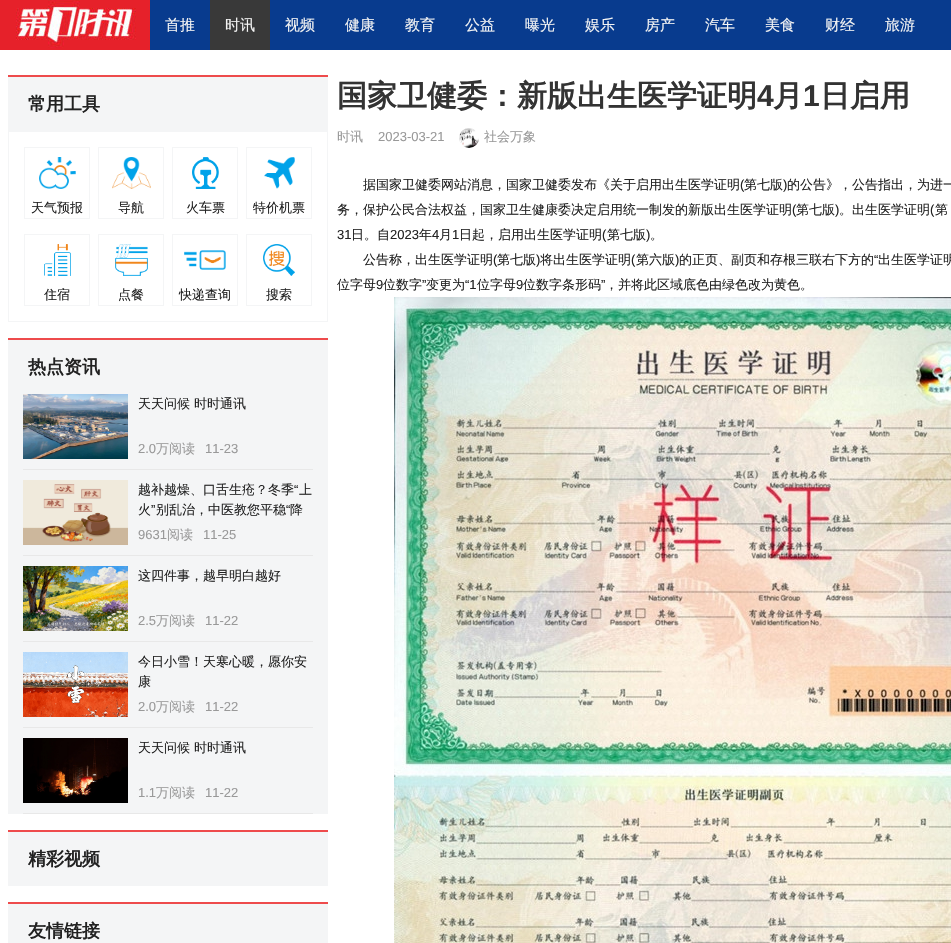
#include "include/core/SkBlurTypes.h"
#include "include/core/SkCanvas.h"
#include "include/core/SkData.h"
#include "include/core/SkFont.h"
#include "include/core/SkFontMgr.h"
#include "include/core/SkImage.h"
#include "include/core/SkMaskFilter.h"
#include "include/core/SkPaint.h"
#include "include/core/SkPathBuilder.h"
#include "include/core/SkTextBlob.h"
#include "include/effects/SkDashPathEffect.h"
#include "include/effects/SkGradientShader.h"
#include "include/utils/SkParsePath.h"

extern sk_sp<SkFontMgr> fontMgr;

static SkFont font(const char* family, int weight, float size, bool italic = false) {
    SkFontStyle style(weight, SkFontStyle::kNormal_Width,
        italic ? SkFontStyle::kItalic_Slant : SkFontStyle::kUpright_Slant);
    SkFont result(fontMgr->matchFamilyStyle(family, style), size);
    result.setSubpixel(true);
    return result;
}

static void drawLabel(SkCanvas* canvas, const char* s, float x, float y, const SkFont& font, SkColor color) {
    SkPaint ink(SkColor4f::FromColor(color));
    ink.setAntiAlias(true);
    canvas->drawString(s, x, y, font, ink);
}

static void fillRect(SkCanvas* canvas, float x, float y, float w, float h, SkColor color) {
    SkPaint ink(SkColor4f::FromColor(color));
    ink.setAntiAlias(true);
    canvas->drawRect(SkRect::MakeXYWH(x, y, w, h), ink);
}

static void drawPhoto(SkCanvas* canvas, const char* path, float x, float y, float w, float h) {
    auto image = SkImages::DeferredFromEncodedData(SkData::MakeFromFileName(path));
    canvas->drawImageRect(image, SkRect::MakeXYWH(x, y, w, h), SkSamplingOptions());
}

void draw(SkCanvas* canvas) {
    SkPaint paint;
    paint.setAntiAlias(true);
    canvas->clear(0xFFFFFFFF);
    fillRect(canvas, 150, 0, 801, 50, 0xFF083B8E);
    drawPhoto(canvas, "assets/img1.png", 0, 0, 150, 50);
    SkFont font1 = font("WenQuanYi Zen Hei", 500, 15);
    drawLabel(canvas, "首推", 165, 30, font1, 0xFFF4F4F4);
    fillRect(canvas, 210, 0, 60, 50, 0xFF393939);
    drawLabel(canvas, "时讯", 225, 30, font1, 0xFFF4F4F4);
    drawLabel(canvas, "视频", 285, 30, font1, 0xFFF4F4F4);
    drawLabel(canvas, "健康", 345, 30, font1, 0xFFF4F4F4);
    drawLabel(canvas, "教育", 405, 30, font1, 0xFFF4F4F4);
    drawLabel(canvas, "公益", 465, 30, font1, 0xFFF4F4F4);
    drawLabel(canvas, "曝光", 525, 30, font1, 0xFFF4F4F4);
    drawLabel(canvas, "娱乐", 585, 30, font1, 0xFFF4F4F4);
    drawLabel(canvas, "房产", 645, 30, font1, 0xFFF4F4F4);
    drawLabel(canvas, "汽车", 705, 30, font1, 0xFFF4F4F4);
    drawLabel(canvas, "美食", 765, 30, font1, 0xFFF4F4F4);
    drawLabel(canvas, "财经", 825, 30, font1, 0xFFF4F4F4);
    drawLabel(canvas, "旅游", 885, 30, font1, 0xFFF4F4F4);
    fillRect(canvas, 8, 75, 320, 2, 0xFFEE4B4C);
    fillRect(canvas, 8, 77, 320, 54, 0xFFF4F5F6);
    SkFont font2 = font("WenQuanYi Zen Hei", 700, 18);
    drawLabel(canvas, "常用工具", 28, 110, font2, 0xFF222222);
    paint.setStroke(true);
    paint.setStrokeWidth(1);
    paint.setColor(0xFFF4F5F6);
    canvas->drawRect(SkRect::MakeXYWH(8.5f, 131.5f, 319, 190), paint);
    canvas->drawRect(SkRect::MakeXYWH(24.5f, 147.5f, 65, 71), paint);
    drawPhoto(canvas, "assets/img2.png", 39, 157, 37, 32);
    SkFont font3 = font("WenQuanYi Zen Hei", 500, 13);
    drawLabel(canvas, "天气预报", 31, 212, font3, 0xFF222222);
    canvas->drawRect(SkRect::MakeXYWH(98.5f, 147.5f, 65, 71), paint);
    drawPhoto(canvas, "assets/img3.png", 112, 157, 39, 32);
    drawLabel(canvas, "导航", 118, 212, font3, 0xFF222222);
    canvas->drawRect(SkRect::MakeXYWH(172.5f, 147.5f, 65, 71), paint);
    drawPhoto(canvas, "assets/img4.png", 192, 157, 27, 32);
    drawLabel(canvas, "火车票", 186, 212, font3, 0xFF222222);
    canvas->drawRect(SkRect::MakeXYWH(246.5f, 147.5f, 65, 71), paint);
    drawPhoto(canvas, "assets/img5.png", 264, 157, 31, 32);
    drawLabel(canvas, "特价机票", 253, 212, font3, 0xFF222222);
    canvas->drawRect(SkRect::MakeXYWH(24.5f, 234.5f, 65, 71), paint);
    drawPhoto(canvas, "assets/img6.png", 44, 244, 27, 32);
    drawLabel(canvas, "住宿", 44, 299, font3, 0xFF222222);
    canvas->drawRect(SkRect::MakeXYWH(98.5f, 234.5f, 65, 71), paint);
    drawPhoto(canvas, "assets/img7.png", 115, 244, 33, 32);
    drawLabel(canvas, "点餐", 118, 299, font3, 0xFF222222);
    canvas->drawRect(SkRect::MakeXYWH(172.5f, 234.5f, 65, 71), paint);
    drawPhoto(canvas, "assets/img8.png", 184, 250, 42, 20);
    drawLabel(canvas, "快递查询", 179, 299, font3, 0xFF222222);
    canvas->drawRect(SkRect::MakeXYWH(246.5f, 234.5f, 65, 71), paint);
    drawPhoto(canvas, "assets/img9.png", 263, 244, 32, 32);
    drawLabel(canvas, "搜索", 266, 299, font3, 0xFF222222);
    fillRect(canvas, 8, 340, 320, 474, 0xFFF4F5F6);
    fillRect(canvas, 8, 338, 320, 2, 0xFFEE4B4C);
    drawLabel(canvas, "热点资讯", 28, 373, font2, 0xFF222222);
    fillRect(canvas, 23, 469, 290, 1, 0xFFE8E8E8);
    drawPhoto(canvas, "assets/img10.png", 23, 394, 105, 65);
    drawLabel(canvas, "天天问候 时时通讯", 138, 408, font3, 0xFF222222);
    SkFont font4 = font("Liberation Sans", 400, 13);
    drawLabel(canvas, "2.0", 138, 453, font4, 0xFF999999);
    drawLabel(canvas, "万阅读", 156, 453, font3, 0xFF999999);
    drawLabel(canvas, "11-23", 205, 453, font4, 0xFF999999);
    fillRect(canvas, 23, 555, 290, 1, 0xFFE8E8E8);
    drawPhoto(canvas, "assets/img11.png", 23, 480, 105, 65);
    drawLabel(canvas, "越补越燥、口舌生疮？冬季", 138, 494, font3, 0xFF222222);
    drawLabel(canvas, "“", 294, 494, font4, 0xFF222222);
    drawLabel(canvas, "上", 299, 494, font3, 0xFF222222);
    drawLabel(canvas, "火", 138, 514, font3, 0xFF222222);
    drawLabel(canvas, "”", 151, 514, font4, 0xFF222222);
    drawLabel(canvas, "别乱治，中医教您平稳", 156, 514, font3, 0xFF222222);
    drawLabel(canvas, "“", 286, 514, font4, 0xFF222222);
    drawLabel(canvas, "降", 290, 514, font3, 0xFF222222);
    drawLabel(canvas, "9631", 138, 539, font4, 0xFF999999);
    drawLabel(canvas, "阅读", 167, 539, font3, 0xFF999999);
    drawLabel(canvas, "11-25", 203, 539, font4, 0xFF999999);
    fillRect(canvas, 23, 641, 290, 1, 0xFFE8E8E8);
    drawPhoto(canvas, "assets/img12.png", 23, 566, 105, 65);
    drawLabel(canvas, "这四件事，越早明白越好", 138, 580, font3, 0xFF222222);
    drawLabel(canvas, "2.5", 138, 625, font4, 0xFF999999);
    drawLabel(canvas, "万阅读", 156, 625, font3, 0xFF999999);
    drawLabel(canvas, "11-22", 205, 625, font4, 0xFF999999);
    fillRect(canvas, 23, 727, 290, 1, 0xFFE8E8E8);
    drawPhoto(canvas, "assets/img13.png", 23, 652, 105, 65);
    drawLabel(canvas, "今日小雪！天寒心暖，愿你安", 138, 666, font3, 0xFF222222);
    drawLabel(canvas, "康", 138, 686, font3, 0xFF222222);
    drawLabel(canvas, "2.0", 138, 711, font4, 0xFF999999);
    drawLabel(canvas, "万阅读", 156, 711, font3, 0xFF999999);
    drawLabel(canvas, "11-22", 205, 711, font4, 0xFF999999);
    fillRect(canvas, 23, 813, 290, 1, 0xFFE8E8E8);
    drawPhoto(canvas, "assets/img14.png", 23, 738, 105, 65);
    drawLabel(canvas, "天天问候 时时通讯", 138, 752, font3, 0xFF222222);
    drawLabel(canvas, "1.1", 138, 797, font4, 0xFF999999);
    drawLabel(canvas, "万阅读", 156, 797, font3, 0xFF999999);
    drawLabel(canvas, "11-22", 205, 797, font4, 0xFF999999);
    fillRect(canvas, 8, 832, 320, 54, 0xFFF4F5F6);
    fillRect(canvas, 8, 830, 320, 2, 0xFFEE4B4C);
    drawLabel(canvas, "精彩视频", 28, 865, font2, 0xFF222222);
    fillRect(canvas, 8, 904, 320, 39, 0xFFF4F5F6);
    fillRect(canvas, 8, 902, 320, 2, 0xFFEE4B4C);
    drawLabel(canvas, "友情链接", 28, 937, font2, 0xFF222222);
    SkFont font5 = font("WenQuanYi Zen Hei", 700, 30);
    drawLabel(canvas, "国家卫健委：新版出生医学证明", 337, 106, font5, 0xFF333333);
    SkFont font6 = font("Liberation Sans", 700, 30);
    drawLabel(canvas, "4", 757, 106, font6, 0xFF333333);
    drawLabel(canvas, "月", 773, 106, font5, 0xFF333333);
    drawLabel(canvas, "1", 803, 106, font6, 0xFF333333);
    drawLabel(canvas, "日启用", 820, 106, font5, 0xFF333333);
    drawLabel(canvas, "时讯", 337, 141, font3, 0xFF999999);
    drawLabel(canvas, "2023-03-21", 378, 141, font4, 0xFF999999);
    drawPhoto(canvas, "assets/img15.png", 459, 128, 20, 20);
    drawLabel(canvas, "社会万象", 484, 141, font3, 0xFF999999);
    drawLabel(canvas, "据国家卫健委网站消息，国家卫健委发布《关于启用出生医学证明", 363, 189, font3, 0xFF222222);
    drawLabel(canvas, "(", 740, 189, font4, 0xFF222222);
    drawLabel(canvas, "第七版", 744, 189, font3, 0xFF222222);
    drawLabel(canvas, ")", 783, 189, font4, 0xFF222222);
    drawLabel(canvas, "的公告》，公告指出，为进一", 787, 189, font3, 0xFF222222);
    drawLabel(canvas, "务，保护公民合法权益，国家卫生健康委决定启用统一制发的新版出生医学证明", 337, 214, font3, 0xFF222222);
    drawLabel(canvas, "(", 792, 214, font4, 0xFF222222);
    drawLabel(canvas, "第七版", 796, 214, font3, 0xFF222222);
    drawLabel(canvas, ")", 835, 214, font4, 0xFF222222);
    drawLabel(canvas, "。出生医学证明", 839, 214, font3, 0xFF222222);
    drawLabel(canvas, "(", 930, 214, font4, 0xFF222222);
    drawLabel(canvas, "第", 935, 214, font3, 0xFF222222);
    drawLabel(canvas, "31", 337, 239, font4, 0xFF222222);
    drawLabel(canvas, "日。自", 351, 239, font3, 0xFF222222);
    drawLabel(canvas, "2023", 390, 239, font4, 0xFF222222);
    drawLabel(canvas, "年", 419, 239, font3, 0xFF222222);
    drawLabel(canvas, "4", 432, 239, font4, 0xFF222222);
    drawLabel(canvas, "月", 439, 239, font3, 0xFF222222);
    drawLabel(canvas, "1", 452, 239, font4, 0xFF222222);
    drawLabel(canvas, "日起，启用出生医学证明", 459, 239, font3, 0xFF222222);
    drawLabel(canvas, "(", 602, 239, font4, 0xFF222222);
    drawLabel(canvas, "第七版", 607, 239, font3, 0xFF222222);
    drawLabel(canvas, ")", 646, 239, font4, 0xFF222222);
    drawLabel(canvas, "。", 650, 239, font3, 0xFF222222);
    drawLabel(canvas, "公告称，出生医学证明", 363, 264, font3, 0xFF222222);
    drawLabel(canvas, "(", 493, 264, font4, 0xFF222222);
    drawLabel(canvas, "第七版", 497, 264, font3, 0xFF222222);
    drawLabel(canvas, ")", 536, 264, font4, 0xFF222222);
    drawLabel(canvas, "将出生医学证明", 540, 264, font3, 0xFF222222);
    drawLabel(canvas, "(", 631, 264, font4, 0xFF222222);
    drawLabel(canvas, "第六版", 636, 264, font3, 0xFF222222);
    drawLabel(canvas, ")", 675, 264, font4, 0xFF222222);
    drawLabel(canvas, "的正页、副页和存根三联右下方的", 679, 264, font3, 0xFF222222);
    drawLabel(canvas, "“", 874, 264, font4, 0xFF222222);
    drawLabel(canvas, "出生医学证明", 878, 264, font3, 0xFF222222);
    drawLabel(canvas, "位字母", 337, 289, font3, 0xFF222222);
    drawLabel(canvas, "9", 376, 289, font4, 0xFF222222);
    drawLabel(canvas, "位数字", 383, 289, font3, 0xFF222222);
    drawLabel(canvas, "”", 422, 289, font4, 0xFF222222);
    drawLabel(canvas, "变更为", 426, 289, font3, 0xFF222222);
    drawLabel(canvas, "“1", 465, 289, font4, 0xFF222222);
    drawLabel(canvas, "位字母", 477, 289, font3, 0xFF222222);
    drawLabel(canvas, "9", 516, 289, font4, 0xFF222222);
    drawLabel(canvas, "位数字条形码", 523, 289, font3, 0xFF222222);
    drawLabel(canvas, "”", 601, 289, font4, 0xFF222222);
    drawLabel(canvas, "，并将此区域底色由绿色改为黄色。", 605, 289, font3, 0xFF222222);
    drawPhoto(canvas, "assets/img16.png", 394, 297, 557, 646);
}
